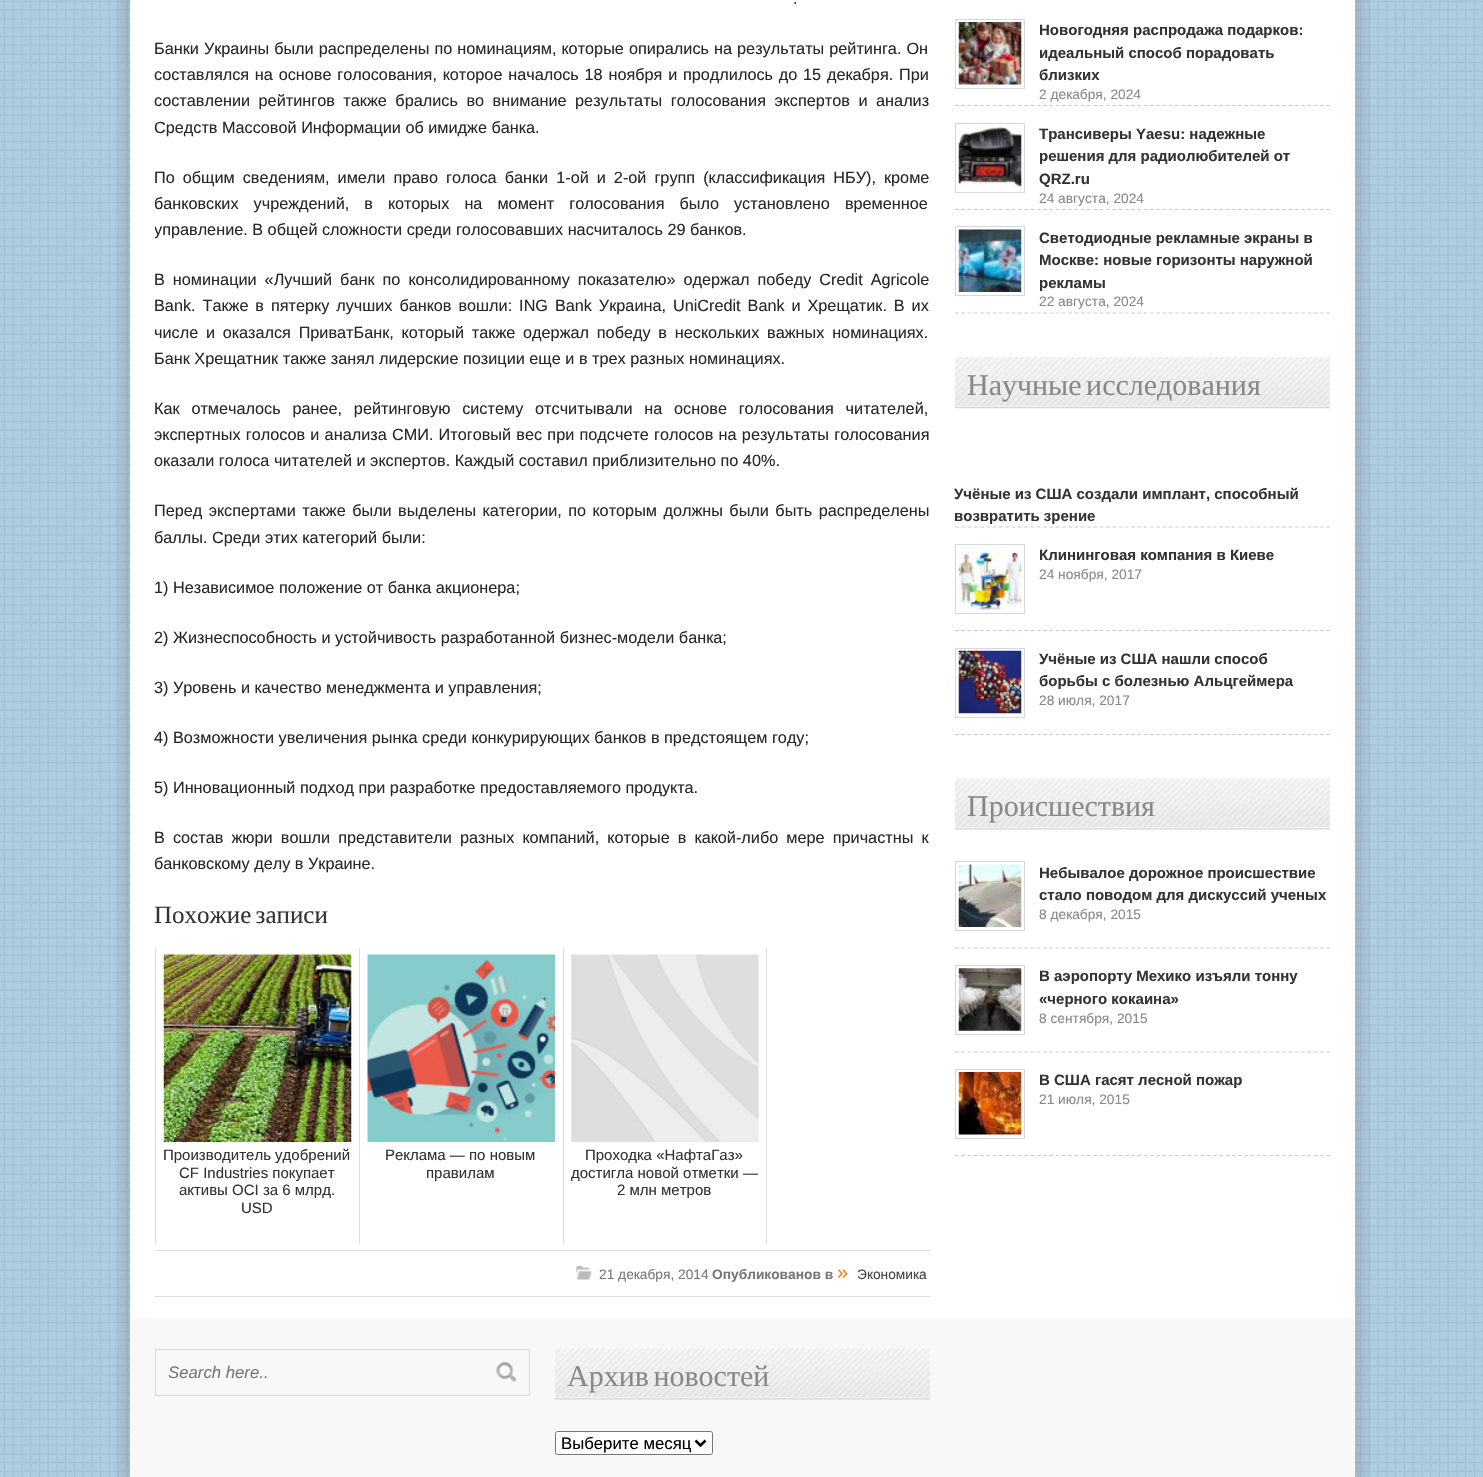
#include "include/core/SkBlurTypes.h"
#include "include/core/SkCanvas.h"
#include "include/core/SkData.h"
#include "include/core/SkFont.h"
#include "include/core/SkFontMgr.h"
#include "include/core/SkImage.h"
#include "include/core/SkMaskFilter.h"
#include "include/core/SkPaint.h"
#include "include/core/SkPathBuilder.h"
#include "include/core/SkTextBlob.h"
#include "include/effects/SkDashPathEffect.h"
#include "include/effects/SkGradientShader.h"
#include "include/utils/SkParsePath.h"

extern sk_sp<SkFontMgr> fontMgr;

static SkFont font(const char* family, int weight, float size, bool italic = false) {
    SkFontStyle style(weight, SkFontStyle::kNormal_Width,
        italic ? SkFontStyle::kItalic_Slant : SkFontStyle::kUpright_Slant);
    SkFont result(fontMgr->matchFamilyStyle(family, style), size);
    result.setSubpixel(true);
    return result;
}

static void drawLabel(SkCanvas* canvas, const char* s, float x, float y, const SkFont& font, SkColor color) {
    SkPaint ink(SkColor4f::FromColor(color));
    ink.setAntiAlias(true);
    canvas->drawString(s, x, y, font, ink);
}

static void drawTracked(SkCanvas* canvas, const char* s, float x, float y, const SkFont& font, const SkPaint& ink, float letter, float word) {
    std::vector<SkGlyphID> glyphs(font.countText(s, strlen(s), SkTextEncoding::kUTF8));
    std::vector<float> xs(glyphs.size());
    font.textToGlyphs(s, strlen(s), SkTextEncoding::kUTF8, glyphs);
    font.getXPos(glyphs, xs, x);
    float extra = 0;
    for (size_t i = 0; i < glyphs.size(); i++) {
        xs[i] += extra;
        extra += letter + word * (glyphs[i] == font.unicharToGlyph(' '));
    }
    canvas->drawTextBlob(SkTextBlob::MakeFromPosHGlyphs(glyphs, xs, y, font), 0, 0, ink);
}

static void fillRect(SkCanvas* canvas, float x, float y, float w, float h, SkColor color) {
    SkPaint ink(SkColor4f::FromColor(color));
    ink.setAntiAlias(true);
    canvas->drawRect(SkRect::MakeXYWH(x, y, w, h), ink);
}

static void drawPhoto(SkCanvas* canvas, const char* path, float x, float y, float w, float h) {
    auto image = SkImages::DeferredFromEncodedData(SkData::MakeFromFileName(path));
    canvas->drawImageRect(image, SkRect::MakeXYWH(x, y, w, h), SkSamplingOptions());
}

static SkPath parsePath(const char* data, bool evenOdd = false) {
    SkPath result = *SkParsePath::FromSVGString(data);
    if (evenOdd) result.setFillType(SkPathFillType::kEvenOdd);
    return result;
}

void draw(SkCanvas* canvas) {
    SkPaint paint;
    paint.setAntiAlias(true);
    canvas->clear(0xFFAFCCE0);
    drawPhoto(canvas, "assets/img1.png", 0, 0, 1483, 1477);
    drawPhoto(canvas, "assets/img2.png", 115, 0, 1255, 1477);
    SkFont font1 = font("Liberation Sans", 400, 16.25f);
    drawLabel(canvas, ".", 793, 4, font1, 0xFF282828);
    paint.setColor(0xFF282828);
    drawTracked(canvas, "Банки Украины были распределены по номинациям, которые опирались на результаты рейтинга. Он", 154, 54, font1, paint, 0, 0.5f);
    drawTracked(canvas, "составлялся на основе голосования, которое началось 18 ноября и продлилось до 15 декабря. При", 154, 80, font1, paint, 0, 1.25f);
    drawTracked(canvas, "составлении рейтингов также брались во внимание результаты голосования экспертов и анализ", 154, 106, font1, paint, 0, 4);
    drawLabel(canvas, "Средств Массовой Информации об имидже банка.", 154, 133, font1, 0xFF282828);
    drawTracked(canvas, "По общим сведениям, имели право голоса банки 1-ой и 2-ой групп (классификация НБУ), кроме", 154, 183, font1, paint, 0, 3.5f);
    drawTracked(canvas, "банковских учреждений, в которых на момент голосования было установлено временное", 154, 209, font1, paint, 0, 10.5f);
    canvas->save();
    canvas->clipRect(SkRect::MakeXYWH(155, 0, 1175, 1318));
    drawLabel(canvas, "управление. В общей сложности среди голосовавших насчиталось 29 банков.", 154, 235, font1, 0xFF282828);
    canvas->restore();
    drawTracked(canvas, "В номинации «Лучший банк по консолидированному показателю» одержал победу Credit Agricole", 154, 285, font1, paint, 0, 3.5f);
    drawTracked(canvas, "Bank. Также в пятерку лучших банков вошли: ING Bank Украина, UniCredit Bank и Хрещатик. В их", 154, 311, font1, paint, 0, 2.4f);
    drawTracked(canvas, "числе и оказался ПриватБанк, который также одержал победу в нескольких важных номинациях.", 154, 338, font1, paint, 0, 3.25f);
    drawLabel(canvas, "Банк Хрещатник также занял лидерские позиции еще и в трех разных номинациях.", 154, 364, font1, 0xFF282828);
    drawTracked(canvas, "Как отмечалось ранее, рейтинговую систему отсчитывали на основе голосования читателей,", 154, 414, font1, paint, 0, 7.25f);
    drawTracked(canvas, "экспертных голосов и анализа СМИ. Итоговый вес при подсчете голосов на результаты голосования", 154, 440, font1, paint, 0, 0.7f);
    drawLabel(canvas, "оказали голоса читателей и экспертов. Каждый составил приблизительно по 40%.", 154, 466, font1, 0xFF282828);
    drawTracked(canvas, "Перед экспертами также были выделены категории, по которым должны были быть распределены", 154, 516, font1, paint, 0, 1.9f);
    drawLabel(canvas, "баллы. Среди этих категорий были:", 154, 543, font1, 0xFF282828);
    drawLabel(canvas, "1) Независимое положение от банка акционера;", 154, 593, font1, 0xFF282828);
    drawLabel(canvas, "2) Жизнеспособность и устойчивость разработанной бизнес-модели банка;", 154, 643, font1, 0xFF282828);
    drawLabel(canvas, "3) Уровень и качество менеджмента и управления;", 154, 693, font1, 0xFF282828);
    drawLabel(canvas, "4) Возможности увеличения рынка среди конкурирующих банков в предстоящем году;", 154, 743, font1, 0xFF282828);
    drawLabel(canvas, "5) Инновационный подход при разработке предоставляемого продукта.", 154, 793, font1, 0xFF282828);
    drawTracked(canvas, "В состав жюри вошли представители разных компаний, которые в какой-либо мере причастны к", 154, 843, font1, paint, 0, 3.6f);
    drawLabel(canvas, "банковскому делу в Украине.", 154, 869, font1, 0xFF282828);
    SkFont font2 = font("Liberation Serif", 400, 25);
    paint.setColor(0xFF333333);
    drawTracked(canvas, "Похожие записи", 154, 923, font2, paint, 0, -2);
    fillRect(canvas, 155, 948, 1, 296, 0xFFDDDDDD);
    drawPhoto(canvas, "assets/img3.png", 163, 954, 189, 188);
    SkFont font3 = font("Liberation Sans", 400, 15);
    drawLabel(canvas, "Производитель удобрений", 163, 1160, font3, 0xFF333333);
    drawLabel(canvas, "CF Industries покупает", 179, 1178, font3, 0xFF333333);
    drawLabel(canvas, "активы OCI за 6 млрд.", 179, 1195, font3, 0xFF333333);
    drawLabel(canvas, "USD", 241, 1213, font3, 0xFF333333);
    fillRect(canvas, 359, 948, 1, 296, 0xFFDDDDDD);
    drawPhoto(canvas, "assets/img4.png", 367, 954, 188, 188);
    drawLabel(canvas, "Реклама — по новым", 385, 1160, font3, 0xFF333333);
    drawLabel(canvas, "правилам", 426, 1178, font3, 0xFF333333);
    fillRect(canvas, 766, 948, 1, 296, 0xFFDDDDDD);
    fillRect(canvas, 563, 948, 1, 296, 0xFFDDDDDD);
    drawPhoto(canvas, "assets/img5.png", 571, 954, 188, 188);
    drawLabel(canvas, "Проходка «НафтаГаз»", 585, 1160, font3, 0xFF333333);
    drawLabel(canvas, "достигла новой отметки —", 571, 1178, font3, 0xFF333333);
    drawLabel(canvas, "2 млн метров", 617, 1195, font3, 0xFF333333);
    fillRect(canvas, 155, 1250, 775, 1, 0xFFDDDDDD);
    fillRect(canvas, 155, 1296, 775, 1, 0xFFDDDDDD);
    drawPhoto(canvas, "assets/img6.png", 576, 1265, 16, 15);
    SkFont font4 = font("Liberation Sans", 400, 13.75f);
    drawLabel(canvas, "21 декабря, 2014", 599, 1279, font4, 0xFF777777);
    SkFont font5 = font("Liberation Sans", 700, 13.75f);
    drawLabel(canvas, "Опубликованов в", 712, 1279, font5, 0xFF777777);
    SkFont font6 = font("Liberation Sans", 400, 20);
    drawLabel(canvas, "»", 837, 1279, font6, 0xFFF67D08);
    drawLabel(canvas, "Экономика", 857, 1279, font4, 0xFF444444);
    paint.setStroke(true);
    paint.setStrokeWidth(1.2f);
    paint.setColor(0xFFCCCCCC);
    paint.setPathEffect(SkDashPathEffect::Make({{3.75f, 2.54f}}, 0));
    canvas->drawPath(parsePath("M955 105.5H1330"), paint);
    paint.setPathEffect(nullptr);
    paint.setStrokeWidth(1);
    paint.setColor(0xFFD7D7D7);
    canvas->drawRect(SkRect::MakeXYWH(955.5f, 19.5f, 69, 69), paint);
    drawPhoto(canvas, "assets/img7.png", 958, 22, 64, 63);
    SkFont font7 = font("Liberation Sans", 700, 15);
    drawLabel(canvas, "Новогодняя распродажа подарков:", 1039, 35, font7, 0xFF333333);
    drawLabel(canvas, "идеальный способ порадовать", 1039, 58, font7, 0xFF333333);
    drawLabel(canvas, "близких", 1039, 80, font7, 0xFF333333);
    drawLabel(canvas, "2 декабря, 2024", 1039, 99, font4, 0xFF888888);
    paint.setStrokeWidth(1.2f);
    paint.setColor(0xFFCCCCCC);
    paint.setPathEffect(SkDashPathEffect::Make({{3.75f, 2.54f}}, 0));
    canvas->drawPath(parsePath("M955 209.5H1330"), paint);
    paint.setPathEffect(nullptr);
    paint.setStrokeWidth(1);
    paint.setColor(0xFFD7D7D7);
    canvas->drawRect(SkRect::MakeXYWH(955.5f, 123.5f, 69, 69), paint);
    drawPhoto(canvas, "assets/img8.png", 958, 126, 64, 62);
    drawLabel(canvas, "Трансиверы Yaesu: надежные", 1039, 139, font7, 0xFF333333);
    drawLabel(canvas, "решения для радиолюбителей от", 1039, 161, font7, 0xFF333333);
    drawLabel(canvas, "QRZ.ru", 1039, 184, font7, 0xFF333333);
    drawLabel(canvas, "24 августа, 2024", 1039, 203, font4, 0xFF888888);
    paint.setStrokeWidth(1.2f);
    paint.setColor(0xFFCCCCCC);
    paint.setPathEffect(SkDashPathEffect::Make({{3.75f, 2.54f}}, 0));
    canvas->drawPath(parsePath("M955 313H1330"), paint);
    paint.setPathEffect(nullptr);
    paint.setStrokeWidth(1);
    paint.setColor(0xFFD7D7D7);
    canvas->drawRect(SkRect::MakeXYWH(955.5f, 226.5f, 69, 69), paint);
    drawPhoto(canvas, "assets/img9.png", 958, 229, 64, 63);
    drawLabel(canvas, "Светодиодные рекламные экраны в", 1039, 243, font7, 0xFF333333);
    drawLabel(canvas, "Москве: новые горизонты наружной", 1039, 265, font7, 0xFF333333);
    drawLabel(canvas, "рекламы", 1039, 288, font7, 0xFF333333);
    drawLabel(canvas, "22 августа, 2024", 1039, 306, font4, 0xFF888888);
    drawPhoto(canvas, "assets/img10.png", 955, 357, 375, 52);
    SkFont font8 = font("Liberation Serif", 400, 30);
    paint.setStroke(false);
    paint.setColor(0xFF888888);
    drawTracked(canvas, "Научные исследования", 967, 395, font8, paint, 0, -3);
    paint.setStroke(true);
    paint.setStrokeWidth(1.2f);
    paint.setColor(0xFFCCCCCC);
    paint.setPathEffect(SkDashPathEffect::Make({{3.75f, 2.54f}}, 0));
    canvas->drawPath(parsePath("M955 527H1330"), paint);
    paint.setPathEffect(nullptr);
    drawLabel(canvas, "Учёные из США создали имплант, способный", 954, 499, font7, 0xFF333333);
    drawLabel(canvas, "возвратить зрение", 954, 521, font7, 0xFF333333);
    paint.setPathEffect(SkDashPathEffect::Make({{3.75f, 2.54f}}, 0));
    canvas->drawPath(parsePath("M955 630.5H1330"), paint);
    paint.setPathEffect(nullptr);
    paint.setStrokeWidth(1);
    paint.setColor(0xFFD7D7D7);
    canvas->drawRect(SkRect::MakeXYWH(955.5f, 544.5f, 69, 69), paint);
    drawPhoto(canvas, "assets/img11.png", 958, 547, 64, 63);
    drawLabel(canvas, "Клининговая компания в Киеве", 1039, 560, font7, 0xFF333333);
    drawLabel(canvas, "24 ноября, 2017", 1039, 579, font4, 0xFF888888);
    canvas->save();
    canvas->clipRect(SkRect::MakeXYWH(955, 358, 375, 377));
    paint.setStrokeWidth(1.2f);
    paint.setColor(0xFFCCCCCC);
    paint.setPathEffect(SkDashPathEffect::Make({{3.75f, 2.54f}}, 0));
    canvas->drawPath(parsePath("M955 734.5H1330"), paint);
    paint.setPathEffect(nullptr);
    canvas->restore();
    paint.setStrokeWidth(1);
    paint.setColor(0xFFD7D7D7);
    canvas->drawRect(SkRect::MakeXYWH(955.5f, 648.5f, 69, 69), paint);
    drawPhoto(canvas, "assets/img12.png", 958, 650, 64, 64);
    drawLabel(canvas, "Учёные из США нашли способ", 1039, 664, font7, 0xFF333333);
    drawLabel(canvas, "борьбы с болезнью Альцгеймера", 1039, 686, font7, 0xFF333333);
    drawLabel(canvas, "28 июля, 2017", 1039, 705, font4, 0xFF888888);
    drawPhoto(canvas, "assets/img13.png", 955, 778, 375, 52);
    drawLabel(canvas, "Происшествия", 967, 816, font8, 0xFF888888);
    paint.setStrokeWidth(1.2f);
    paint.setColor(0xFFCCCCCC);
    paint.setPathEffect(SkDashPathEffect::Make({{3.75f, 2.54f}}, 0));
    canvas->drawPath(parsePath("M955 948H1330"), paint);
    paint.setPathEffect(nullptr);
    paint.setStrokeWidth(1);
    paint.setColor(0xFFD7D7D7);
    canvas->drawRect(SkRect::MakeXYWH(955.5f, 861.5f, 69, 69), paint);
    drawPhoto(canvas, "assets/img14.png", 958, 864, 64, 63);
    drawLabel(canvas, "Небывалое дорожное происшествие", 1039, 878, font7, 0xFF333333);
    drawLabel(canvas, "стало поводом для дискуссий ученых", 1039, 900, font7, 0xFF333333);
    drawLabel(canvas, "8 декабря, 2015", 1039, 919, font4, 0xFF888888);
    paint.setStrokeWidth(1.2f);
    paint.setColor(0xFFCCCCCC);
    paint.setPathEffect(SkDashPathEffect::Make({{3.75f, 2.54f}}, 0));
    canvas->drawPath(parsePath("M955 1052H1330"), paint);
    paint.setPathEffect(nullptr);
    paint.setStrokeWidth(1);
    paint.setColor(0xFFD7D7D7);
    canvas->drawRect(SkRect::MakeXYWH(955.5f, 965.5f, 69, 69), paint);
    drawPhoto(canvas, "assets/img15.png", 958, 968, 64, 63);
    drawLabel(canvas, "В аэропорту Мехико изъяли тонну", 1039, 981, font7, 0xFF333333);
    drawLabel(canvas, "«черного кокаина»", 1039, 1004, font7, 0xFF333333);
    drawLabel(canvas, "8 сентября, 2015", 1039, 1023, font4, 0xFF888888);
    canvas->save();
    canvas->clipRect(SkRect::MakeXYWH(955, 779, 375, 377));
    paint.setStrokeWidth(1.2f);
    paint.setColor(0xFFCCCCCC);
    paint.setPathEffect(SkDashPathEffect::Make({{3.75f, 2.54f}}, 0));
    canvas->drawPath(parsePath("M955 1155.5H1330"), paint);
    paint.setPathEffect(nullptr);
    canvas->restore();
    paint.setStrokeWidth(1);
    paint.setColor(0xFFD7D7D7);
    canvas->drawRect(SkRect::MakeXYWH(955.5f, 1069.5f, 69, 69), paint);
    drawPhoto(canvas, "assets/img16.png", 958, 1072, 64, 63);
    drawLabel(canvas, "В США гасят лесной пожар", 1039, 1085, font7, 0xFF333333);
    drawLabel(canvas, "21 июля, 2015", 1039, 1104, font4, 0xFF888888);
    fillRect(canvas, 130, 1318, 1225, 159, 0xFFF8F8F8);
    paint.setColor(0xFFD9D9D9);
    canvas->drawRect(SkRect::MakeXYWH(155.5f, 1349.5f, 374, 46), paint);
    SkFont font9 = font("Liberation Sans", 400, 16.75f, true);
    drawLabel(canvas, "Search here..", 168, 1378, font9, 0xFF777777);
    drawPhoto(canvas, "assets/img17.png", 496, 1362, 21, 20);
    drawPhoto(canvas, "assets/img18.png", 555, 1348, 375, 52);
    paint.setStroke(false);
    paint.setColor(0xFF888888);
    drawTracked(canvas, "Архив новостей", 567, 1386, font8, paint, 0, -3);
    paint.setColor(0xFFFFFFFF);
    canvas->drawRoundRect(SkRect::MakeXYWH(555.5f, 1431.5f, 157, 23), 2, 2, paint);
    paint.setStroke(true);
    paint.setColor(0xFF767676);
    canvas->drawRoundRect(SkRect::MakeXYWH(555.5f, 1431.5f, 157, 23), 2, 2, paint);
    paint.setStrokeWidth(2.5f);
    paint.setColor(0xFF000000);
    canvas->drawPath(parsePath("M695.5 1440.5L700.5 1445.5L705.5 1440.5"), paint);
    SkFont font10 = font("Liberation Sans", 400, 16.75f);
    drawLabel(canvas, "Выберите месяц", 561, 1449, font10, 0xFF000000);
}
